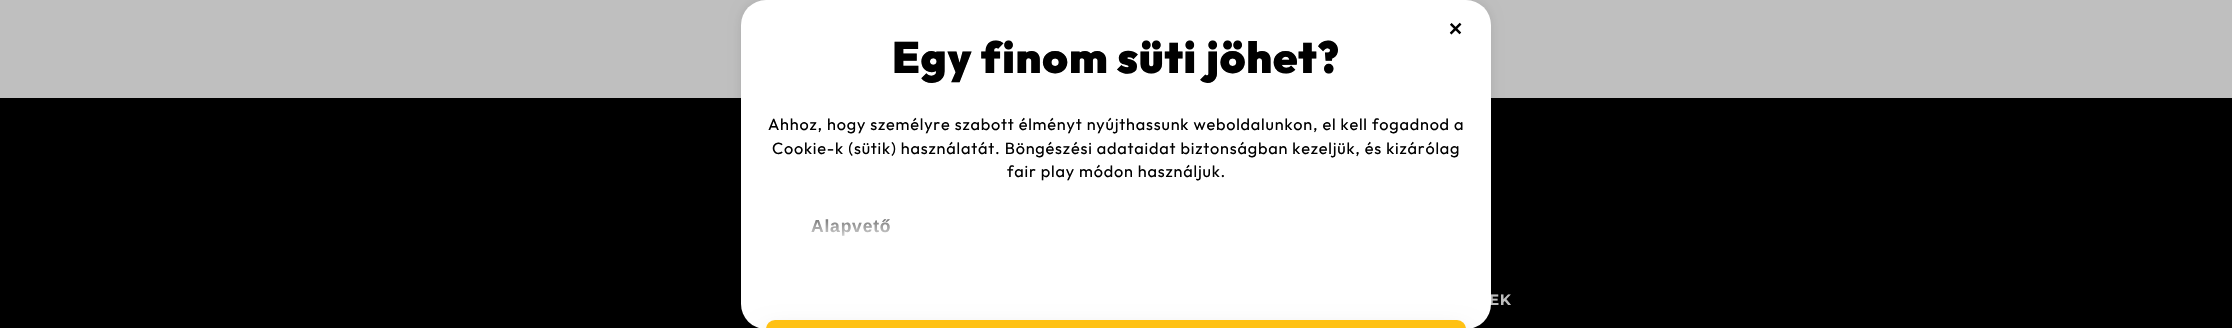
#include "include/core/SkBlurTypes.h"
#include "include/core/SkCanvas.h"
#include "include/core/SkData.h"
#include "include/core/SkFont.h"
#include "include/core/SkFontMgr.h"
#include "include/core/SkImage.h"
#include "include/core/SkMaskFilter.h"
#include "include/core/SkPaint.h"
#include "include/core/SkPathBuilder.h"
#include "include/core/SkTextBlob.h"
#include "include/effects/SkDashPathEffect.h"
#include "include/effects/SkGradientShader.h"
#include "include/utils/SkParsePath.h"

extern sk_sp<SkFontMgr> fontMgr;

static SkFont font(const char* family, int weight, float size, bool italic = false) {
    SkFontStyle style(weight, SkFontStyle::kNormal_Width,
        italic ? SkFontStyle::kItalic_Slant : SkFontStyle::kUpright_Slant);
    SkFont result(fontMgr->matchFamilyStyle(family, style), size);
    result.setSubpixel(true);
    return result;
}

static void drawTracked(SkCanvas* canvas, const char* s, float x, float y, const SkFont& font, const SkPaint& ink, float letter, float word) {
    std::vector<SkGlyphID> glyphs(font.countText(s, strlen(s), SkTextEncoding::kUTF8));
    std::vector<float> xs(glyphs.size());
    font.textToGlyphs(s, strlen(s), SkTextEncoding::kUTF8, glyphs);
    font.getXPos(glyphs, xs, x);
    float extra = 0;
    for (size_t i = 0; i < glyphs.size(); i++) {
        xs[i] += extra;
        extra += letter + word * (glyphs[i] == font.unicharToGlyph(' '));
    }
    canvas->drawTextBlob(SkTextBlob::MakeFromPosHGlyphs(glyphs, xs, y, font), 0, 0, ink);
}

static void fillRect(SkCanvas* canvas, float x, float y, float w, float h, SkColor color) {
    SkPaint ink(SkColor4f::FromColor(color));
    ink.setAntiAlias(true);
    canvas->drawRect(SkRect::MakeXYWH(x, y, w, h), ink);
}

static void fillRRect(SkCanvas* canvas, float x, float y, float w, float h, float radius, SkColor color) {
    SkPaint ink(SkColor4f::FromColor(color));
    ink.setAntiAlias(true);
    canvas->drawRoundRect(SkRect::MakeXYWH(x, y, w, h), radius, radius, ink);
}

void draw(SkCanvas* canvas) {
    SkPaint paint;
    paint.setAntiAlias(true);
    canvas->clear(0xFFBFBFBF);
    fillRect(canvas, 0, 98, 2232, 230, 0xFF000000);
    paint.setColor(0x1A000000);
    paint.setMaskFilter(SkMaskFilter::MakeBlur(kNormal_SkBlurStyle, 6));
    canvas->drawRoundRect(SkRect::MakeXYWH(741, 0, 750, 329), 25, 25, paint);
    paint.setMaskFilter(nullptr);
    SkFont font1 = font("Montserrat", 700, 15);
    paint.setColor(0xFFBFBFBF);
    drawTracked(canvas, "EK", 1489, 305, font1, paint, 0.8f, 0);
    fillRRect(canvas, 741, 0, 750, 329, 25, 0xFFFFFFFF);
    SkFont font2 = font("Outfit", 400, 28);
    paint.setColor(0xFF000000);
    drawTracked(canvas, "×", 1448, 38, font2, paint, 0.8f, 0);
    SkFont font3 = font("Outfit", 900, 43.75f);
    drawTracked(canvas, "Egy finom süti jöhet?", 892, 73, font3, paint, 0.8f, 0);
    SkFont font4 = font("Outfit", 400, 16.25f);
    drawTracked(canvas, "Ahhoz, hogy személyre szabott élményt nyújthassunk weboldalunkon, el kell fogadnod a", 768, 130, font4, paint, 0.8f, 0);
    drawTracked(canvas, "Cookie-k (sütik) használatát. Böngészési adataidat biztonságban kezeljük, és kizárólag", 772, 154, font4, paint, 0.8f, 0);
    drawTracked(canvas, "fair play módon használjuk.", 1007, 177, font4, paint, 0.8f, 0);
    SkFont font5 = font("Liberation Sans", 700, 17.5f);
    drawTracked(canvas, "Alapvető", 811, 232, font5, paint, 0.8f, 0);
    {
        const SkColor colors[] = {0xFFFFFFFF, 0x00FFFFFF};
        const float stops[] = {0, 1};
        const SkPoint ends[] = {{1116, 245}, {1116, 195}};
        paint.setShader(SkGradientShader::MakeLinear(ends, colors, stops, 2, SkTileMode::kClamp));
        paint.setAlpha(255);
    }
    canvas->drawRect(SkRect::MakeXYWH(811, 219, 80, 17), paint);
    paint.setShader(nullptr);
    paint.setColor(0x26000000);
    paint.setMaskFilter(SkMaskFilter::MakeBlur(kNormal_SkBlurStyle, 12.5f));
    canvas->drawRoundRect(SkRect::MakeXYWH(766, 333, 700, 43), 10, 10, paint);
    paint.setMaskFilter(nullptr);
    fillRRect(canvas, 766, 320, 700, 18, 10, 0xFFFFC114);
}
